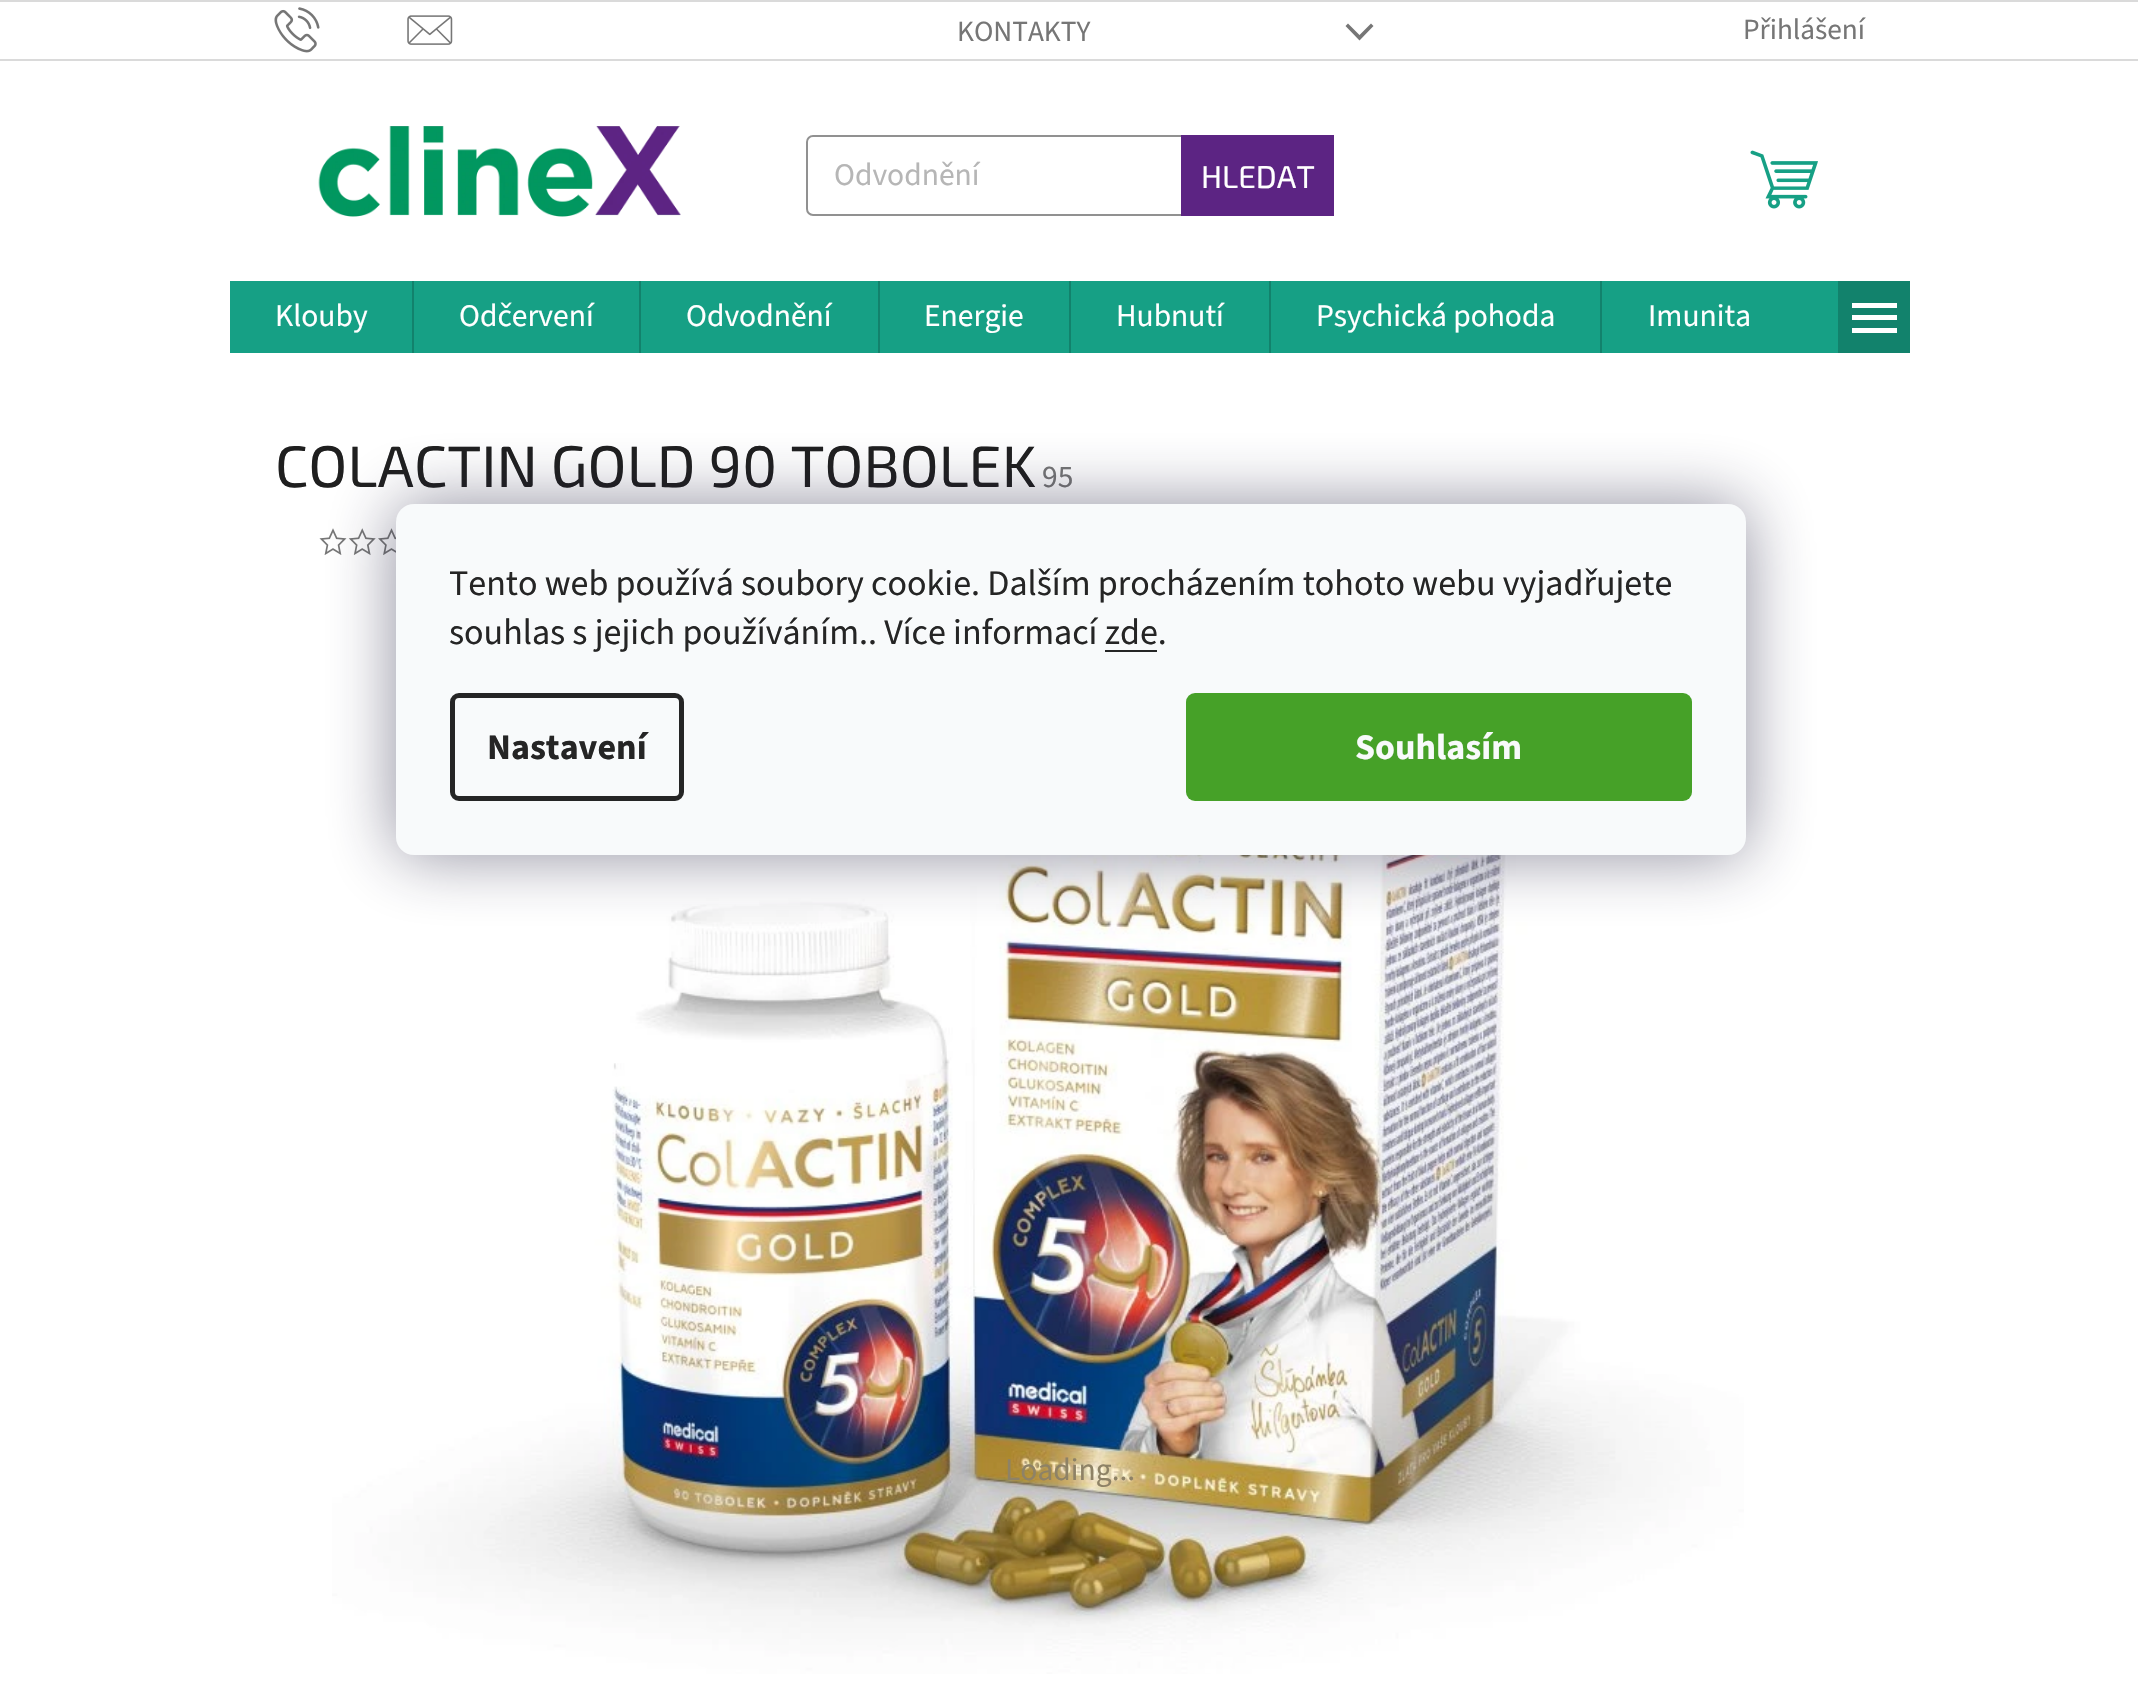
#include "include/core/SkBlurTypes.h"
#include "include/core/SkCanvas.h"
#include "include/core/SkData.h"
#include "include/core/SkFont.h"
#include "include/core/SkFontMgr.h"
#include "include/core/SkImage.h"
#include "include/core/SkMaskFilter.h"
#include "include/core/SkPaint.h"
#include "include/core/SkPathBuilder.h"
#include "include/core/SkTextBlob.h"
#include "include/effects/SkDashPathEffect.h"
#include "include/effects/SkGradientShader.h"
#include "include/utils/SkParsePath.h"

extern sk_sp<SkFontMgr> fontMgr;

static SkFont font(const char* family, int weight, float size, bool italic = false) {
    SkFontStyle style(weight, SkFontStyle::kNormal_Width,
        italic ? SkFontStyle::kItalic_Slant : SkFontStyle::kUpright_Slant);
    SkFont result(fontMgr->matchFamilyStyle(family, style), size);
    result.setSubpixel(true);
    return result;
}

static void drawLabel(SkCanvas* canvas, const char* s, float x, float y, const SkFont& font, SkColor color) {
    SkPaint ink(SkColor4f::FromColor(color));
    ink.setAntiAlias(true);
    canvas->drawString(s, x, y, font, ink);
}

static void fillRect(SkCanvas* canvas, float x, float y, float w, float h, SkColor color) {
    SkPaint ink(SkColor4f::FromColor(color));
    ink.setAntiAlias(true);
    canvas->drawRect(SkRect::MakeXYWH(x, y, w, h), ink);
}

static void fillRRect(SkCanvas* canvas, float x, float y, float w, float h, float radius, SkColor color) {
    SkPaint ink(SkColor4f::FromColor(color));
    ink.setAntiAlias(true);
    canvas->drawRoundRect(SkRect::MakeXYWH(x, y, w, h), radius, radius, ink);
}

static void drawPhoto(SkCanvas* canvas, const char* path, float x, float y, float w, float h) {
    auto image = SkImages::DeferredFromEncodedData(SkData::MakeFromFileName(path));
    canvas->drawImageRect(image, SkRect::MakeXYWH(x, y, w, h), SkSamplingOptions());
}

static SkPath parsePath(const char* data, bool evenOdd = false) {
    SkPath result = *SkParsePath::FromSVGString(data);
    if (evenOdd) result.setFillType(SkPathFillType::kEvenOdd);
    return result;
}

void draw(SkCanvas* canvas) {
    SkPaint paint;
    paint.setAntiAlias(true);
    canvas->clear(0xFFFFFFFF);
    fillRect(canvas, 0, 0, 2138, 2, 0xFFDADADA);
    fillRect(canvas, 0, 59, 2138, 2, 0xFFDADADA);
    drawPhoto(canvas, "assets/img1.png", 274, 7, 46, 46);
    drawPhoto(canvas, "assets/img2.png", 407, 15, 46, 30);
    SkFont font1 = font("Source Sans 3", 400, 29.25f);
    drawLabel(canvas, "KONTAKTY", 957, 41, font1, 0xFF767676);
    paint.setColor(0xFF767676);
    canvas->drawPath(parsePath("M1345.5 26L1348 23.5L1359.5 35L1371 23.5L1373.5 26L1359.5 40.5Z"), paint);
    drawLabel(canvas, "Přihlášení", 1743, 39, font1, 0xFF767676);
    drawPhoto(canvas, "assets/img3.png", 318, 126, 363, 91);
    paint.setStroke(true);
    paint.setStrokeWidth(2);
    paint.setColor(0xFF919191);
    canvas->drawRoundRect(SkRect::MakeXYWH(807, 136, 526, 79), 6, 6, paint);
    SkFont font2 = font("Source Sans 3", 400, 31.5f);
    drawLabel(canvas, "Odvodnění", 834, 185, font2, 0xFFB6B6B6);
    fillRect(canvas, 1181, 135, 153, 81, 0xFF5C2483);
    SkFont font3 = font("Exo 2", 400, 31.5f);
    drawLabel(canvas, "HLEDAT", 1201, 188, font3, 0xFFFFFFFF);
    drawPhoto(canvas, "assets/img4.png", 1750, 150, 68, 59);
    fillRect(canvas, 230, 281, 1608, 72, 0xFF16A085);
    drawLabel(canvas, "Klouby", 275, 326, font2, 0xFFFFFFFF);
    fillRect(canvas, 412, 281, 2, 72, 0xFF12826C);
    drawLabel(canvas, "Odčervení", 459, 326, font2, 0xFFFFFFFF);
    fillRect(canvas, 639, 281, 2, 72, 0xFF12826C);
    drawLabel(canvas, "Odvodnění", 686, 326, font2, 0xFFFFFFFF);
    fillRect(canvas, 878, 281, 2, 72, 0xFF12826C);
    drawLabel(canvas, "Energie", 924, 326, font2, 0xFFFFFFFF);
    fillRect(canvas, 1069, 281, 2, 72, 0xFF12826C);
    drawLabel(canvas, "Hubnutí", 1116, 326, font2, 0xFFFFFFFF);
    fillRect(canvas, 1269, 281, 2, 72, 0xFF12826C);
    drawLabel(canvas, "Psychická pohoda", 1316, 326, font2, 0xFFFFFFFF);
    fillRect(canvas, 1600, 281, 2, 72, 0xFF12826C);
    drawLabel(canvas, "Imunita", 1648, 326, font2, 0xFFFFFFFF);
    fillRect(canvas, 1838, 281, 72, 72, 0xFF12826C);
    paint.setStroke(false);
    paint.setColor(0xFFFFFFFF);
    canvas->drawPath(parsePath("M1852 333H1897V328H1852ZM1852 320H1897V315H1852ZM1852 303V308H1897V303Z"), paint);
    SkFont font4 = font("Exo 2", 400, 58.5f);
    drawLabel(canvas, "COLACTIN GOLD 90 TOBOLEK", 275, 487, font4, 0xFF1F1F1F);
    drawLabel(canvas, "95", 1042, 487, font2, 0xFF767676);
    drawPhoto(canvas, "assets/img5.png", 319, 528, 28, 27);
    drawPhoto(canvas, "assets/img6.png", 348, 528, 28, 27);
    drawPhoto(canvas, "assets/img7.png", 378, 528, 18, 27);
    drawPhoto(canvas, "assets/img8.png", 332, 754, 1412, 920);
    drawLabel(canvas, "Loading...", 1005, 1480, font2, 0xFF8E8266);
    paint.setColor(0x801B1939);
    paint.setMaskFilter(SkMaskFilter::MakeBlur(kNormal_SkBlurStyle, 34));
    canvas->drawRoundRect(SkRect::MakeXYWH(396, 504, 1350, 351), 18, 18, paint);
    paint.setMaskFilter(nullptr);
    fillRRect(canvas, 396, 504, 1350, 351, 18, 0xFFF8FAFB);
    SkFont font5 = font("Source Sans 3", 400, 36);
    drawLabel(canvas, "Tento web používá soubory cookie. Dalším procházením tohoto webu vyjadřujete", 449, 595, font5, 0xFF252525);
    drawLabel(canvas, "souhlas s jejich používáním.. Více informací zde.", 449, 644, font5, 0xFF252525);
    fillRect(canvas, 1105, 650, 52, 2, 0xFF252525);
    paint.setStroke(true);
    paint.setStrokeWidth(5);
    paint.setColor(0xFF252525);
    canvas->drawRoundRect(SkRect::MakeXYWH(452.5f, 695.5f, 229, 103), 6.5f, 6.5f, paint);
    SkFont font6 = font("Source Sans 3", 700, 36);
    drawLabel(canvas, "Nastavení", 487, 759, font6, 0xFF252525);
    fillRRect(canvas, 1186, 693, 506, 108, 9, 0xFF46A128);
    drawLabel(canvas, "Souhlasím", 1355, 759, font6, 0xFFF8FAFB);
}
